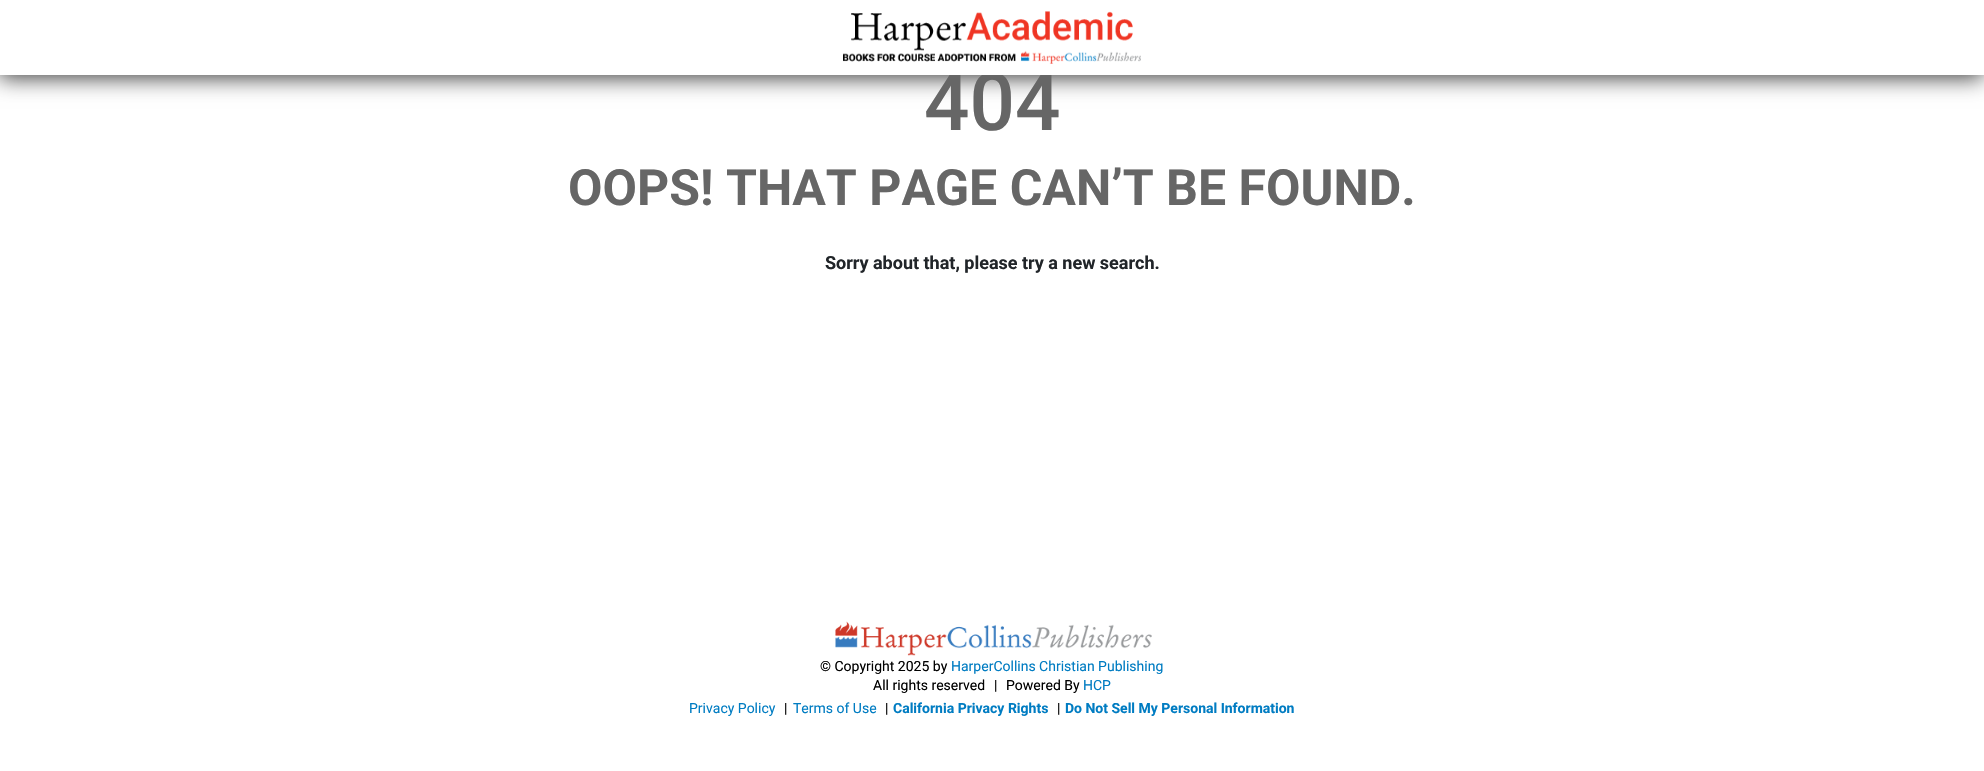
#include "include/core/SkBlurTypes.h"
#include "include/core/SkCanvas.h"
#include "include/core/SkData.h"
#include "include/core/SkFont.h"
#include "include/core/SkFontMgr.h"
#include "include/core/SkImage.h"
#include "include/core/SkMaskFilter.h"
#include "include/core/SkPaint.h"
#include "include/core/SkPathBuilder.h"
#include "include/core/SkTextBlob.h"
#include "include/effects/SkDashPathEffect.h"
#include "include/effects/SkGradientShader.h"
#include "include/utils/SkParsePath.h"

extern sk_sp<SkFontMgr> fontMgr;

static SkFont font(const char* family, int weight, float size, bool italic = false) {
    SkFontStyle style(weight, SkFontStyle::kNormal_Width,
        italic ? SkFontStyle::kItalic_Slant : SkFontStyle::kUpright_Slant);
    SkFont result(fontMgr->matchFamilyStyle(family, style), size);
    result.setSubpixel(true);
    return result;
}

static void drawLabel(SkCanvas* canvas, const char* s, float x, float y, const SkFont& font, SkColor color) {
    SkPaint ink(SkColor4f::FromColor(color));
    ink.setAntiAlias(true);
    canvas->drawString(s, x, y, font, ink);
}

static void fillRect(SkCanvas* canvas, float x, float y, float w, float h, SkColor color) {
    SkPaint ink(SkColor4f::FromColor(color));
    ink.setAntiAlias(true);
    canvas->drawRect(SkRect::MakeXYWH(x, y, w, h), ink);
}

static void drawPhoto(SkCanvas* canvas, const char* path, float x, float y, float w, float h) {
    auto image = SkImages::DeferredFromEncodedData(SkData::MakeFromFileName(path));
    canvas->drawImageRect(image, SkRect::MakeXYWH(x, y, w, h), SkSamplingOptions());
}

void draw(SkCanvas* canvas) {
    SkPaint paint;
    paint.setAntiAlias(true);
    canvas->clear(0xFFFFFFFF);
    paint.setColor(0xBF000000);
    paint.setMaskFilter(SkMaskFilter::MakeBlur(kNormal_SkBlurStyle, 10.5f));
    canvas->drawRect(SkRect::MakeXYWH(-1, 3, 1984, 75), paint);
    paint.setMaskFilter(nullptr);
    SkFont font1 = font("Roboto", 500, 80);
    drawLabel(canvas, "404", 924, 130, font1, 0xFF666666);
    fillRect(canvas, 0, 0, 1984, 75, 0xFFFFFFFF);
    drawPhoto(canvas, "assets/img1.png", 843, 11, 298, 53);
    SkFont font2 = font("Roboto", 700, 50);
    drawLabel(canvas, "OOPS! THAT PAGE CAN’T BE FOUND.", 568, 205, font2, 0xFF666666);
    SkFont font3 = font("Roboto", 700, 18);
    drawLabel(canvas, "Sorry about that, please try a new search.", 825, 269, font3, 0xFF212529);
    drawPhoto(canvas, "assets/img2.png", 835, 621, 317, 35);
    SkFont font4 = font("Roboto", 400, 14);
    drawLabel(canvas, "© Copyright 2025 by", 820, 671, font4, 0xFF000000);
    drawLabel(canvas, "HarperCollins Christian Publishing", 951, 671, font4, 0xFF007CC2);
    drawLabel(canvas, "All rights reserved", 873, 690, font4, 0xFF000000);
    drawLabel(canvas, "|", 994, 690, font4, 0xFF000000);
    drawLabel(canvas, "Powered By", 1006, 690, font4, 0xFF000000);
    drawLabel(canvas, "HCP", 1083, 690, font4, 0xFF007CC2);
    drawLabel(canvas, "Privacy Policy", 689, 713, font4, 0xFF007CC2);
    drawLabel(canvas, "|", 784, 713, font4, 0xFF000000);
    drawLabel(canvas, "Terms of Use", 793, 713, font4, 0xFF007CC2);
    drawLabel(canvas, "|", 885, 713, font4, 0xFF000000);
    SkFont font5 = font("Roboto", 700, 14);
    drawLabel(canvas, "California Privacy Rights", 893, 713, font5, 0xFF007CC2);
    drawLabel(canvas, "|", 1057, 713, font4, 0xFF000000);
    drawLabel(canvas, "Do Not Sell My Personal Information", 1065, 713, font5, 0xFF007CC2);
}
